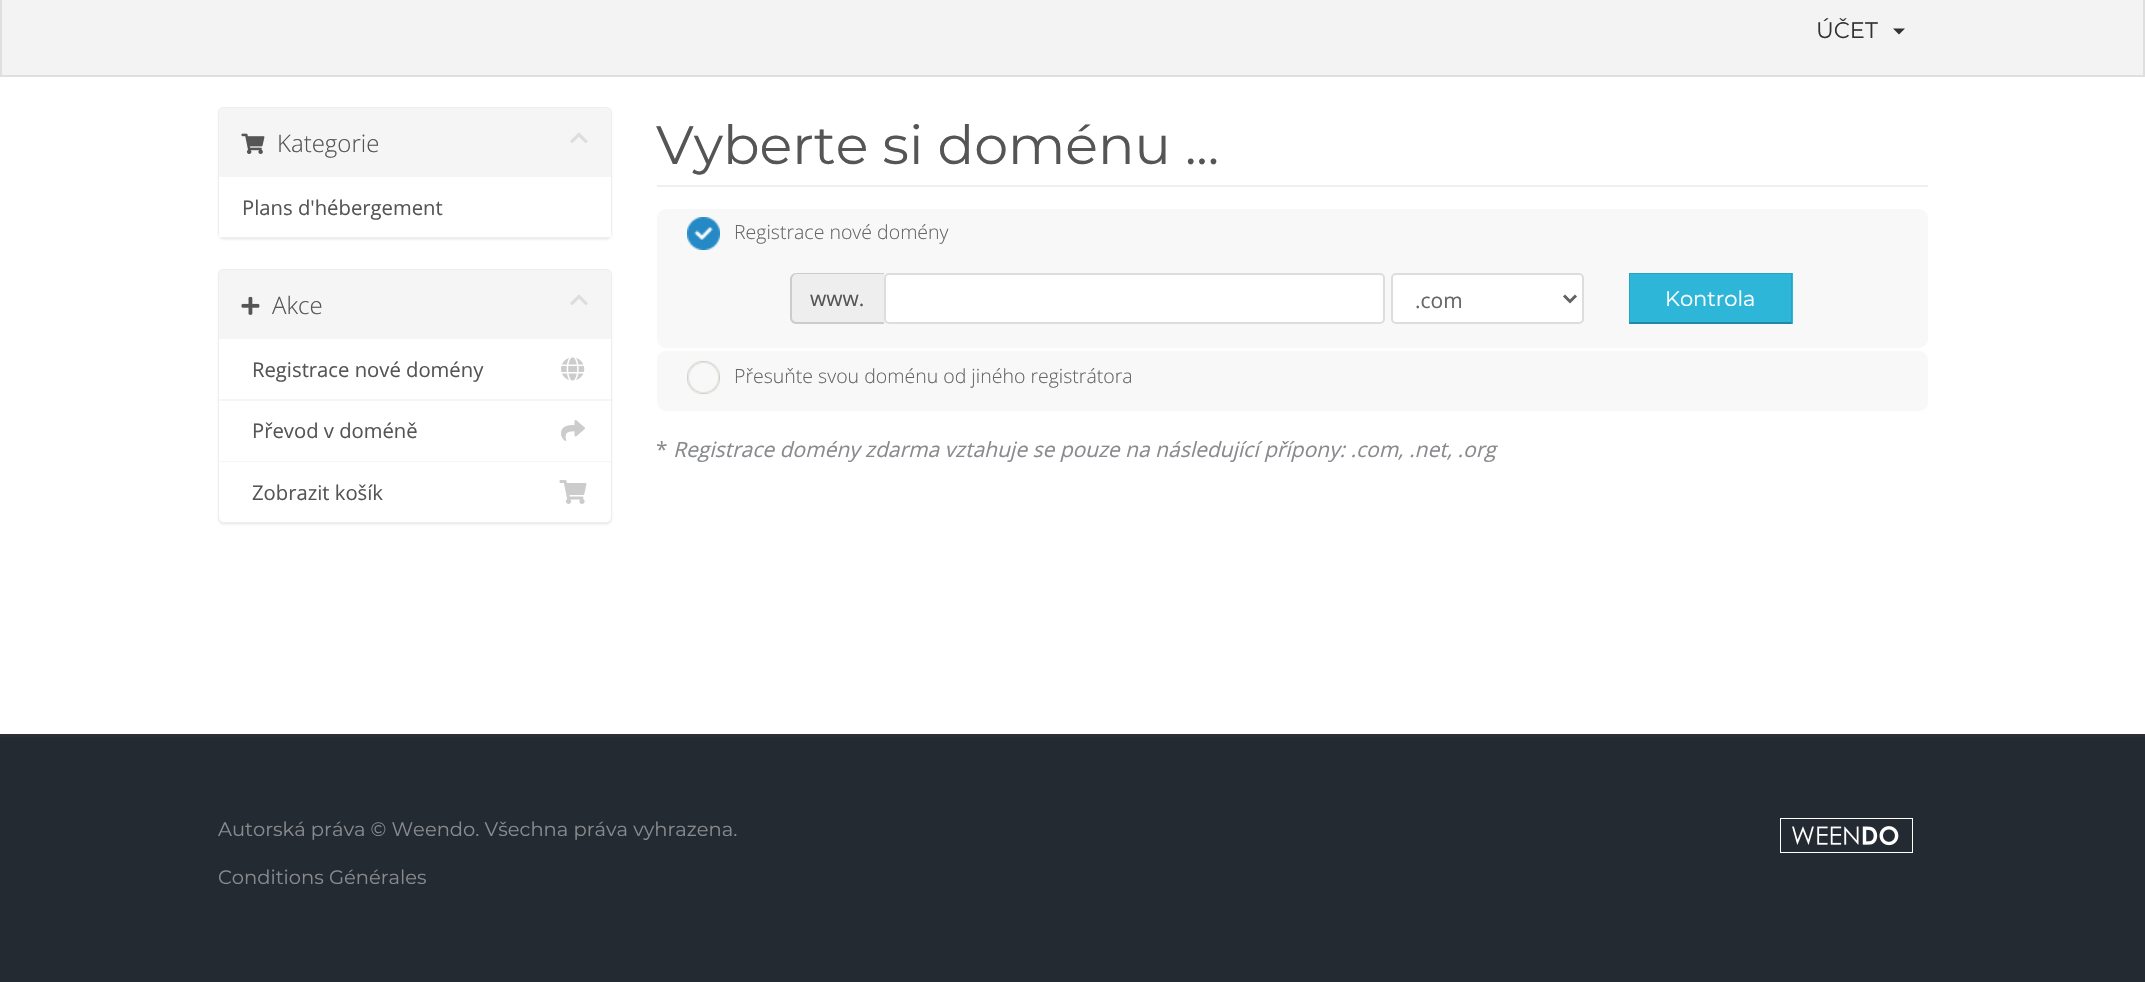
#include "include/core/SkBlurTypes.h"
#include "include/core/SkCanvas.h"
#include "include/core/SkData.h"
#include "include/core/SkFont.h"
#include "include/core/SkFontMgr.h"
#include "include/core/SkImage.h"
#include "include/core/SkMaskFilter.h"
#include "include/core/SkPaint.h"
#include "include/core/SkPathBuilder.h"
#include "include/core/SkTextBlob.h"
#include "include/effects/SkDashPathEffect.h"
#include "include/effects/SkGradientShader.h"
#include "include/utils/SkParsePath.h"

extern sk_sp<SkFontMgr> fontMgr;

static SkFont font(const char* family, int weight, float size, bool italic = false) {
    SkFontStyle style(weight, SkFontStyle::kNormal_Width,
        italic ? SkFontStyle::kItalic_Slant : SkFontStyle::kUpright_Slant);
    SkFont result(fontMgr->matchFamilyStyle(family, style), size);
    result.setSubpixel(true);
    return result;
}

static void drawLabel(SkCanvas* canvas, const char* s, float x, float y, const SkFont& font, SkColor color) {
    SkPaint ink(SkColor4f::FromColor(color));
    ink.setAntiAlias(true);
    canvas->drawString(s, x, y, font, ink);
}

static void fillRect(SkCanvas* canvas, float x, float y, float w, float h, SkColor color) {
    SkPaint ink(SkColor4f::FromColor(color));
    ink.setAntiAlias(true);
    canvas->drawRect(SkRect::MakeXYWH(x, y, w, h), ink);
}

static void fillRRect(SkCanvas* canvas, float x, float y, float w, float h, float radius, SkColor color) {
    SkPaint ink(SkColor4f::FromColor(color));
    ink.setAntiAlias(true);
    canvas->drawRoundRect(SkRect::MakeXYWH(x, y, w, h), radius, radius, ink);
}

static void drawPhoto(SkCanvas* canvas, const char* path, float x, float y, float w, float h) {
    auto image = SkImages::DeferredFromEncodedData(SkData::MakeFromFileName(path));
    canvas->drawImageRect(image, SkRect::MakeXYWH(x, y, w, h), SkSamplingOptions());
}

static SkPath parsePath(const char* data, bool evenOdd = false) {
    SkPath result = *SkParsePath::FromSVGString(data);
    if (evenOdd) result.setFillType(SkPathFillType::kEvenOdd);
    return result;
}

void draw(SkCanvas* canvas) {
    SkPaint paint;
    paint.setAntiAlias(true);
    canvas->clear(0xFFFFFFFF);
    paint.setColor(0xFFF3F3F3);
    canvas->drawRect(SkRect::MakeXYWH(1, -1, 2143, 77), paint);
    paint.setStroke(true);
    paint.setStrokeWidth(2);
    paint.setColor(0xFFDFDFDF);
    canvas->drawRect(SkRect::MakeXYWH(1, -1, 2143, 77), paint);
    SkFont font1 = font("Montserrat", 400, 22.5f);
    drawLabel(canvas, "ÚČET", 1816, 38, font1, 0xFF323232);
    paint.setStroke(false);
    paint.setColor(0xFF323232);
    canvas->drawPath(parsePath("M1893 28.5H1905L1899 34.5Z"), paint);
    paint.setColor(0x0D000000);
    paint.setMaskFilter(SkMaskFilter::MakeBlur(kNormal_SkBlurStyle, 1));
    canvas->drawRoundRect(SkRect::MakeXYWH(218, 108, 394, 132), 6, 6, paint);
    paint.setMaskFilter(nullptr);
    paint.setStroke(true);
    paint.setColor(0xFFEEEEEE);
    canvas->drawRoundRect(SkRect::MakeXYWH(219, 108, 392, 130), 5, 5, paint);
    paint.setStroke(false);
    paint.setColor(0xFFF5F5F5);
    canvas->drawPath(parsePath("M224 108H606C609 108 611 110 611 113V177H219V113C219 110 221 108 224 108Z"), paint);
    drawPhoto(canvas, "assets/img1.png", 241, 133, 24, 21);
    SkFont font2 = font("Open Sans", 300, 24);
    drawLabel(canvas, "Kategorie", 277, 152, font2, 0xFF555555);
    drawPhoto(canvas, "assets/img2.png", 570, 132, 18, 11);
    fillRect(canvas, 219, 177, 392, 60, 0xFFFFFFFF);
    SkFont font3 = font("Open Sans", 400, 20.25f);
    drawLabel(canvas, "Plans d'hébergement", 242, 215, font3, 0xFF555555);
    paint.setColor(0x0D000000);
    paint.setMaskFilter(SkMaskFilter::MakeBlur(kNormal_SkBlurStyle, 1));
    canvas->drawRoundRect(SkRect::MakeXYWH(218, 270, 394, 255), 6, 6, paint);
    paint.setMaskFilter(nullptr);
    paint.setStroke(true);
    paint.setColor(0xFFEEEEEE);
    canvas->drawRoundRect(SkRect::MakeXYWH(219, 270, 392, 253), 5, 5, paint);
    paint.setStroke(false);
    paint.setColor(0xFFF5F5F5);
    canvas->drawPath(parsePath("M224 270H606C609 270 611 272 611 275V339H219V275C219 272 221 270 224 270Z"), paint);
    drawPhoto(canvas, "assets/img3.png", 241, 296, 19, 19);
    drawLabel(canvas, "Akce", 272, 314, font2, 0xFF555555);
    drawPhoto(canvas, "assets/img2.png", 570, 294, 18, 11);
    fillRect(canvas, 219, 339, 392, 60, 0xFFFFFFFF);
    fillRect(canvas, 219, 399, 392, 2, 0xFFF5F5F5);
    drawLabel(canvas, "Registrace nové domény", 252, 377, font3, 0xFF555555);
    drawPhoto(canvas, "assets/img4.png", 561, 357, 24, 24);
    fillRect(canvas, 219, 401, 392, 60, 0xFFFFFFFF);
    fillRect(canvas, 219, 461, 392, 1, 0xFFF5F5F5);
    drawLabel(canvas, "Převod v doméně", 252, 438, font3, 0xFF555555);
    drawPhoto(canvas, "assets/img5.png", 561, 420, 24, 21);
    paint.setColor(0xFFFFFFFF);
    canvas->drawPath(parsePath("M219 462H611V517C611 520 609 522 606 522H224C221 522 219 520 219 517Z"), paint);
    drawLabel(canvas, "Zobrazit košík", 252, 500, font3, 0xFF555555);
    drawPhoto(canvas, "assets/img6.png", 559, 480, 28, 24);
    fillRect(canvas, 657, 185, 1271, 2, 0xFFEFEFEF);
    SkFont font4 = font("Montserrat", 400, 54);
    drawLabel(canvas, "Vyberte si doménu ...", 656, 164, font4, 0xFF555555);
    fillRRect(canvas, 657, 209, 1271, 139, 9, 0xFFF8F8F8);
    drawPhoto(canvas, "assets/img7.png", 687, 217, 33, 33);
    SkFont font5 = font("Open Sans", 300, 19.5f);
    drawLabel(canvas, "Registrace nové domény", 734, 239, font5, 0xFF666666);
    paint.setColor(0xFFEEEEEE);
    canvas->drawPath(parsePath("M797 273H884V324H797C793.5 324 791 321.5 791 318V279C791 275.5 793.5 273 797 273Z"), paint);
    paint.setColor(0xFFCCCCCC);
    canvas->drawPath(parsePath("M796 273H884V324H796C793 324 790 321 790 318V279C790 276 793 273 796 273ZM796 274H884V322H796C794 322 792 320 792 318V279C792 277 794 274 796 274Z", true), paint);
    SkFont font6 = font("Open Sans", 400, 21);
    drawLabel(canvas, "www.", 810, 306, font6, 0xFF555555);
    paint.setColor(0xFFFFFFFF);
    canvas->drawRoundRect(SkRect::MakeXYWH(885, 274, 499, 49), 4, 4, paint);
    paint.setStroke(true);
    paint.setColor(0xFFDDDDDD);
    canvas->drawRoundRect(SkRect::MakeXYWH(885, 274, 499, 49), 4, 4, paint);
    paint.setStroke(false);
    paint.setColor(0xFFFFFFFF);
    canvas->drawRoundRect(SkRect::MakeXYWH(1392, 274, 191, 49), 4, 4, paint);
    paint.setStroke(true);
    paint.setColor(0xFFDDDDDD);
    canvas->drawRoundRect(SkRect::MakeXYWH(1392, 274, 191, 49), 4, 4, paint);
    paint.setStrokeWidth(3);
    paint.setColor(0xFF626262);
    canvas->drawPath(parsePath("M1564 295.5L1570 301.5L1576 295.5"), paint);
    drawLabel(canvas, ".com", 1415, 308, font6, 0xFF666666);
    fillRect(canvas, 1629, 273, 164, 51, 0xFF2DB6D8);
    paint.setStroke(false);
    paint.setColor(0xFF29A4C2);
    canvas->drawPath(parsePath("M1629 273H1792L1791 274H1630Z"), paint);
    paint.setColor(0x1A000000);
    canvas->drawPath(parsePath("M1792 273V324L1791 322V274Z"), paint);
    paint.setColor(0x40000000);
    canvas->drawPath(parsePath("M1792 324H1629L1630 322H1791Z"), paint);
    paint.setColor(0x1A000000);
    canvas->drawPath(parsePath("M1629 324V273L1630 274V322Z"), paint);
    SkFont font7 = font("Montserrat", 400, 21);
    drawLabel(canvas, "Kontrola", 1665, 306, font7, 0xFFFFFFFF);
    fillRRect(canvas, 657, 351, 1271, 60, 9, 0xFFF8F8F8);
    drawPhoto(canvas, "assets/img8.png", 687, 361, 33, 33);
    drawLabel(canvas, "Přesuňte svou doménu od jiného registrátora", 734, 383, font5, 0xFF666666);
    drawLabel(canvas, "*", 656, 457, font6, 0xFF888A8E);
    SkFont font8 = font("Open Sans", 400, 21, true);
    drawLabel(canvas, "Registrace domény zdarma vztahuje se pouze na následující přípony: .com, .net, .org", 673, 457, font8, 0xFF888A8E);
    fillRect(canvas, 0, 737, 2145, 245, 0xFF232A31);
    fillRect(canvas, 0, 734, 2145, 3, 0xFF2B2F34);
    SkFont font9 = font("Montserrat", 400, 19.5f);
    drawLabel(canvas, "Autorská práva © Weendo. Všechna práva vyhrazena.", 218, 836, font9, 0xFF888A8E);
    drawPhoto(canvas, "assets/img9.png", 1780, 818, 133, 35);
    drawLabel(canvas, "Conditions Générales", 218, 884, font9, 0xFF888A8E);
}
